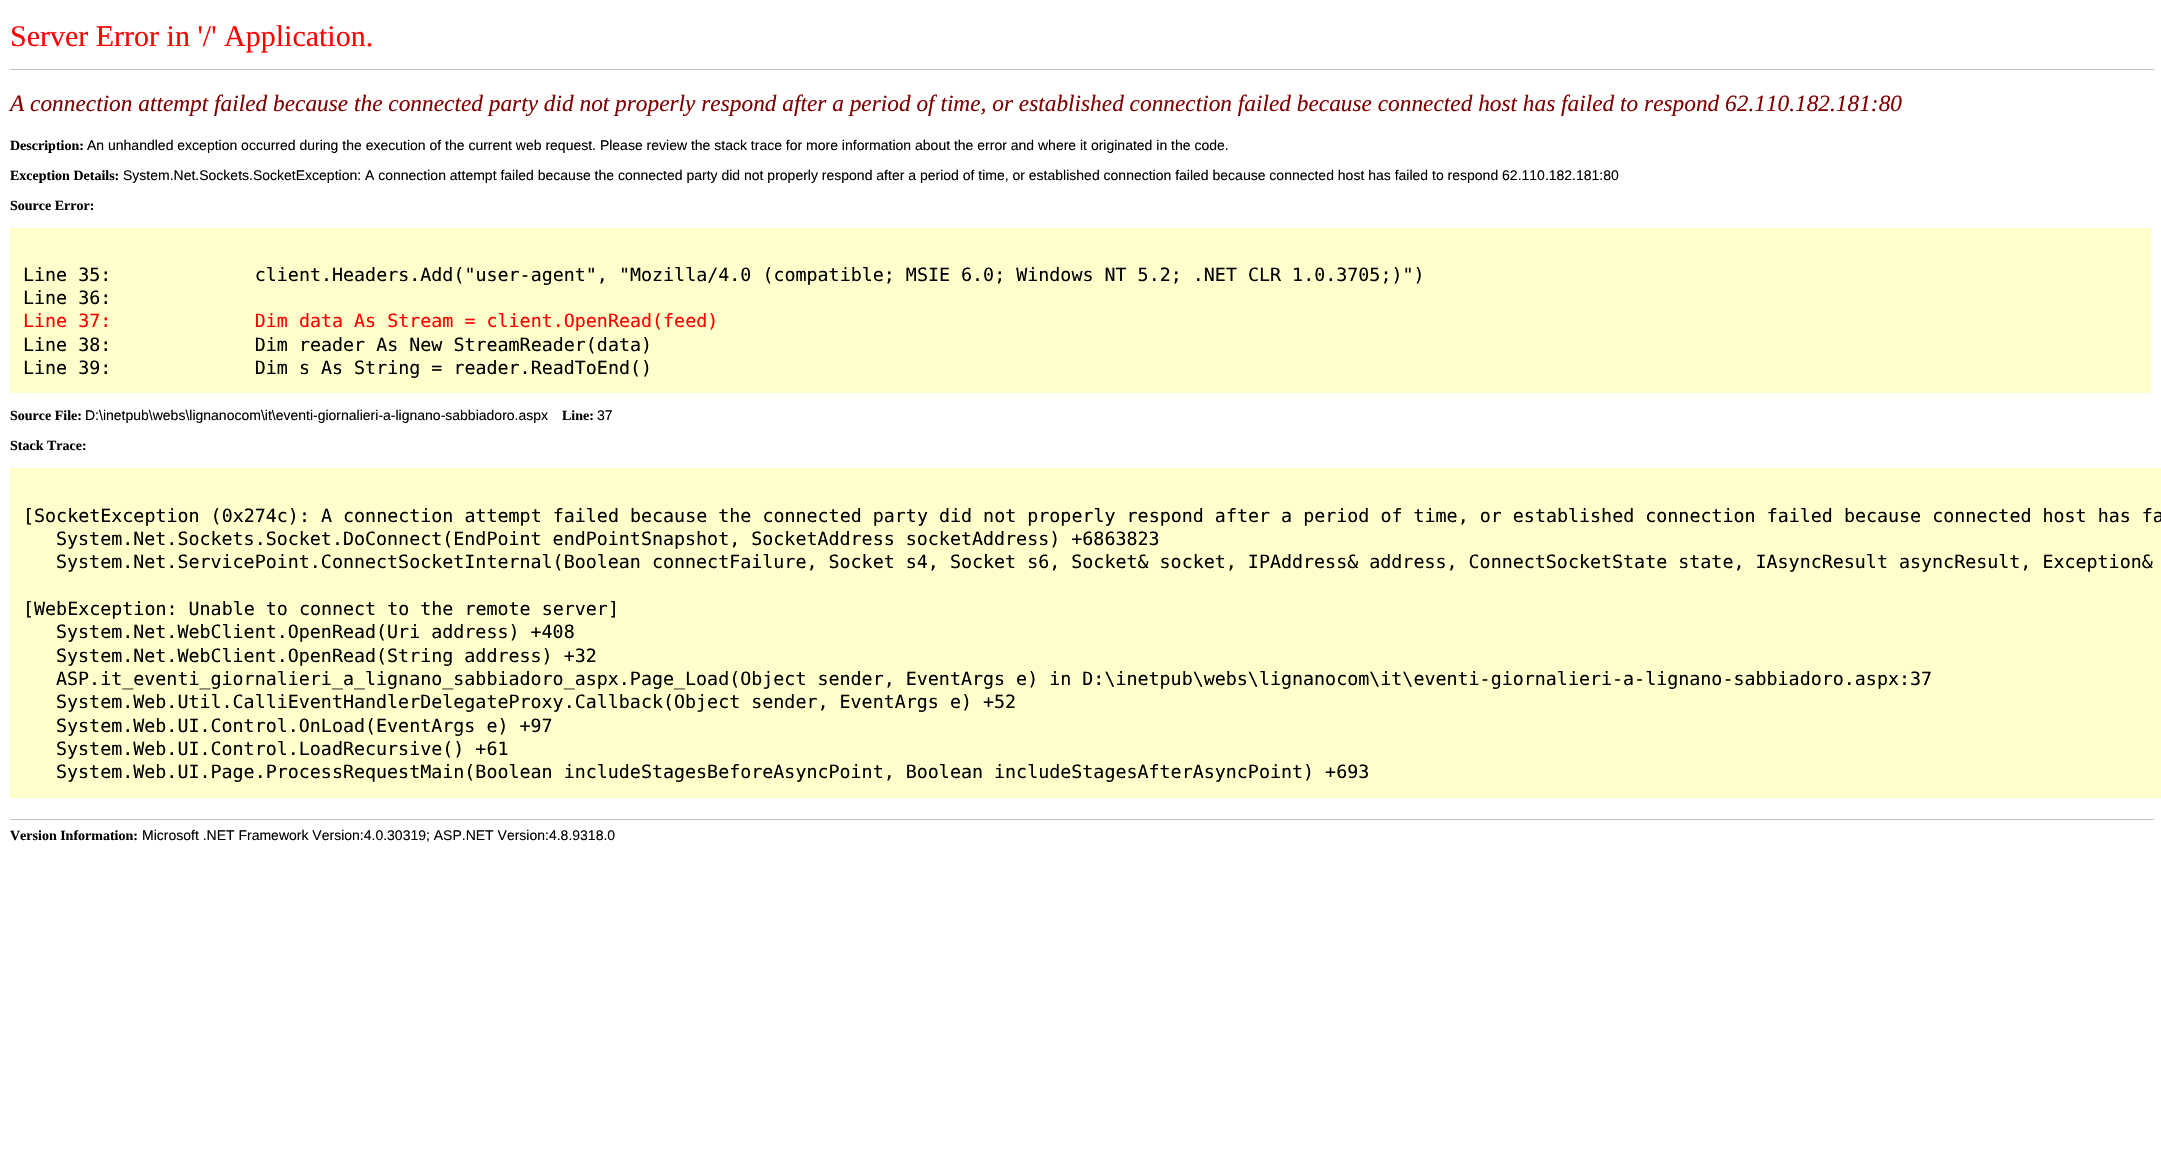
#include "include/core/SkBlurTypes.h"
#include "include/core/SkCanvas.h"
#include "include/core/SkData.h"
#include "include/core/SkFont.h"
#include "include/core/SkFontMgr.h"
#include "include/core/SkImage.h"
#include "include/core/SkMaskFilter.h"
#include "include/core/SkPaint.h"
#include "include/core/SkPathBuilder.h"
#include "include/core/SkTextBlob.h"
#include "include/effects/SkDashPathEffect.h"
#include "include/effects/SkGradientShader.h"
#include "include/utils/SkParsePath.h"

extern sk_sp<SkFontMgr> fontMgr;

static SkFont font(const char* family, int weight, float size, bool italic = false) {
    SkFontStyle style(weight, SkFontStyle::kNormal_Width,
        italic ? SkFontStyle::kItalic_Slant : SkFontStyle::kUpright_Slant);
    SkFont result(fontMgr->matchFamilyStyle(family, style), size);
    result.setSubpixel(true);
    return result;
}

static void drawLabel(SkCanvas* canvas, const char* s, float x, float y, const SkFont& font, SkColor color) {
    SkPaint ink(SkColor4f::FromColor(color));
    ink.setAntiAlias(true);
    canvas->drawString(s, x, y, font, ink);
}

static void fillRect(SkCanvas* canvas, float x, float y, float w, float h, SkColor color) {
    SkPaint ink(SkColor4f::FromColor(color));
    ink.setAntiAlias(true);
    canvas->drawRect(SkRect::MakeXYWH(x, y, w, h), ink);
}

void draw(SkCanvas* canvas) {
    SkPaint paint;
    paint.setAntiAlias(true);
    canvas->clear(0xFFFFFFFF);
    SkFont font1 = font("Liberation Serif", 400, 30);
    drawLabel(canvas, "Server Error in '/' Application.", 10, 46, font1, 0xFFFF0000);
    fillRect(canvas, 10, 69, 2144, 1, 0xFFC0C0C0);
    SkFont font2 = font("Liberation Serif", 400, 23.33f, true);
    drawLabel(canvas, "A connection attempt failed because the connected party did not properly respond after a period of time, or established connection failed because connected host has failed to respond 62.110.182.181:80", 10, 111, font2, 0xFF800000);
    SkFont font3 = font("Liberation Serif", 700, 14);
    drawLabel(canvas, "Description:", 10, 150, font3, 0xFF000000);
    SkFont font4 = font("Liberation Sans", 400, 14);
    drawLabel(canvas, "An unhandled exception occurred during the execution of the current web request. Please review the stack trace for more information about the error and where it originated in the code.", 87, 150, font4, 0xFF000000);
    drawLabel(canvas, "Exception Details:", 10, 180, font3, 0xFF000000);
    drawLabel(canvas, "System.Net.Sockets.SocketException: A connection attempt failed because the connected party did not properly respond after a period of time, or established connection failed because connected host has failed to respond 62.110.182.181:80", 123, 180, font4, 0xFF000000);
    drawLabel(canvas, "Source Error:", 10, 210, font3, 0xFF000000);
    fillRect(canvas, 10, 228, 2141, 165, 0xFFFFFFCC);
    SkFont font5 = font("DejaVu Sans Mono", 400, 18.33f);
    drawLabel(canvas, "Line 35:             client.Headers.Add(\"user-agent\", \"Mozilla/4.0 (compatible; MSIE 6.0; Windows NT 5.2; .NET CLR 1.0.3705;)\")", 23, 281, font5, 0xFF000000);
    drawLabel(canvas, "Line 36:", 23, 304, font5, 0xFF000000);
    drawLabel(canvas, "Line 37:             Dim data As Stream = client.OpenRead(feed)", 23, 327, font5, 0xFFFF0000);
    drawLabel(canvas, "Line 38:             Dim reader As New StreamReader(data)", 23, 351, font5, 0xFF000000);
    drawLabel(canvas, "Line 39:             Dim s As String = reader.ReadToEnd()", 23, 374, font5, 0xFF000000);
    drawLabel(canvas, "Source File:", 10, 420, font3, 0xFF000000);
    drawLabel(canvas, "D:\\inetpub\\webs\\lignanocom\\it\\eventi-giornalieri-a-lignano-sabbiadoro.aspx", 85, 420, font4, 0xFF000000);
    drawLabel(canvas, "Line:", 562, 420, font3, 0xFF000000);
    drawLabel(canvas, "37", 597, 420, font4, 0xFF000000);
    drawLabel(canvas, "Stack Trace:", 10, 450, font3, 0xFF000000);
    fillRect(canvas, 10, 468, 2151, 330, 0xFFFFFFCC);
    drawLabel(canvas, "[SocketException (0x274c): A connection attempt failed because the connected party did not properly respond after a period of time, or established connection failed because connected host has fa", 23, 522, font5, 0xFF000000);
    drawLabel(canvas, "System.Net.Sockets.Socket.DoConnect(EndPoint endPointSnapshot, SocketAddress socketAddress) +6863823", 56, 545, font5, 0xFF000000);
    drawLabel(canvas, "System.Net.ServicePoint.ConnectSocketInternal(Boolean connectFailure, Socket s4, Socket s6, Socket& socket, IPAddress& address, ConnectSocketState state, IAsyncResult asyncResult, Exception&", 56, 568, font5, 0xFF000000);
    drawLabel(canvas, "[WebException: Unable to connect to the remote server]", 23, 615, font5, 0xFF000000);
    drawLabel(canvas, "System.Net.WebClient.OpenRead(Uri address) +408", 56, 638, font5, 0xFF000000);
    drawLabel(canvas, "System.Net.WebClient.OpenRead(String address) +32", 56, 662, font5, 0xFF000000);
    drawLabel(canvas, "ASP.it_eventi_giornalieri_a_lignano_sabbiadoro_aspx.Page_Load(Object sender, EventArgs e) in D:\\inetpub\\webs\\lignanocom\\it\\eventi-giornalieri-a-lignano-sabbiadoro.aspx:37", 56, 685, font5, 0xFF000000);
    drawLabel(canvas, "System.Web.Util.CalliEventHandlerDelegateProxy.Callback(Object sender, EventArgs e) +52", 56, 708, font5, 0xFF000000);
    drawLabel(canvas, "System.Web.UI.Control.OnLoad(EventArgs e) +97", 56, 732, font5, 0xFF000000);
    drawLabel(canvas, "System.Web.UI.Control.LoadRecursive() +61", 56, 755, font5, 0xFF000000);
    drawLabel(canvas, "System.Web.UI.Page.ProcessRequestMain(Boolean includeStagesBeforeAsyncPoint, Boolean includeStagesAfterAsyncPoint) +693", 56, 778, font5, 0xFF000000);
    fillRect(canvas, 10, 819, 2144, 1, 0xFFC0C0C0);
    drawLabel(canvas, "Version Information:", 10, 840, font3, 0xFF000000);
    drawLabel(canvas, "Microsoft .NET Framework Version:4.0.30319; ASP.NET Version:4.8.9318.0", 142, 840, font4, 0xFF000000);
}
